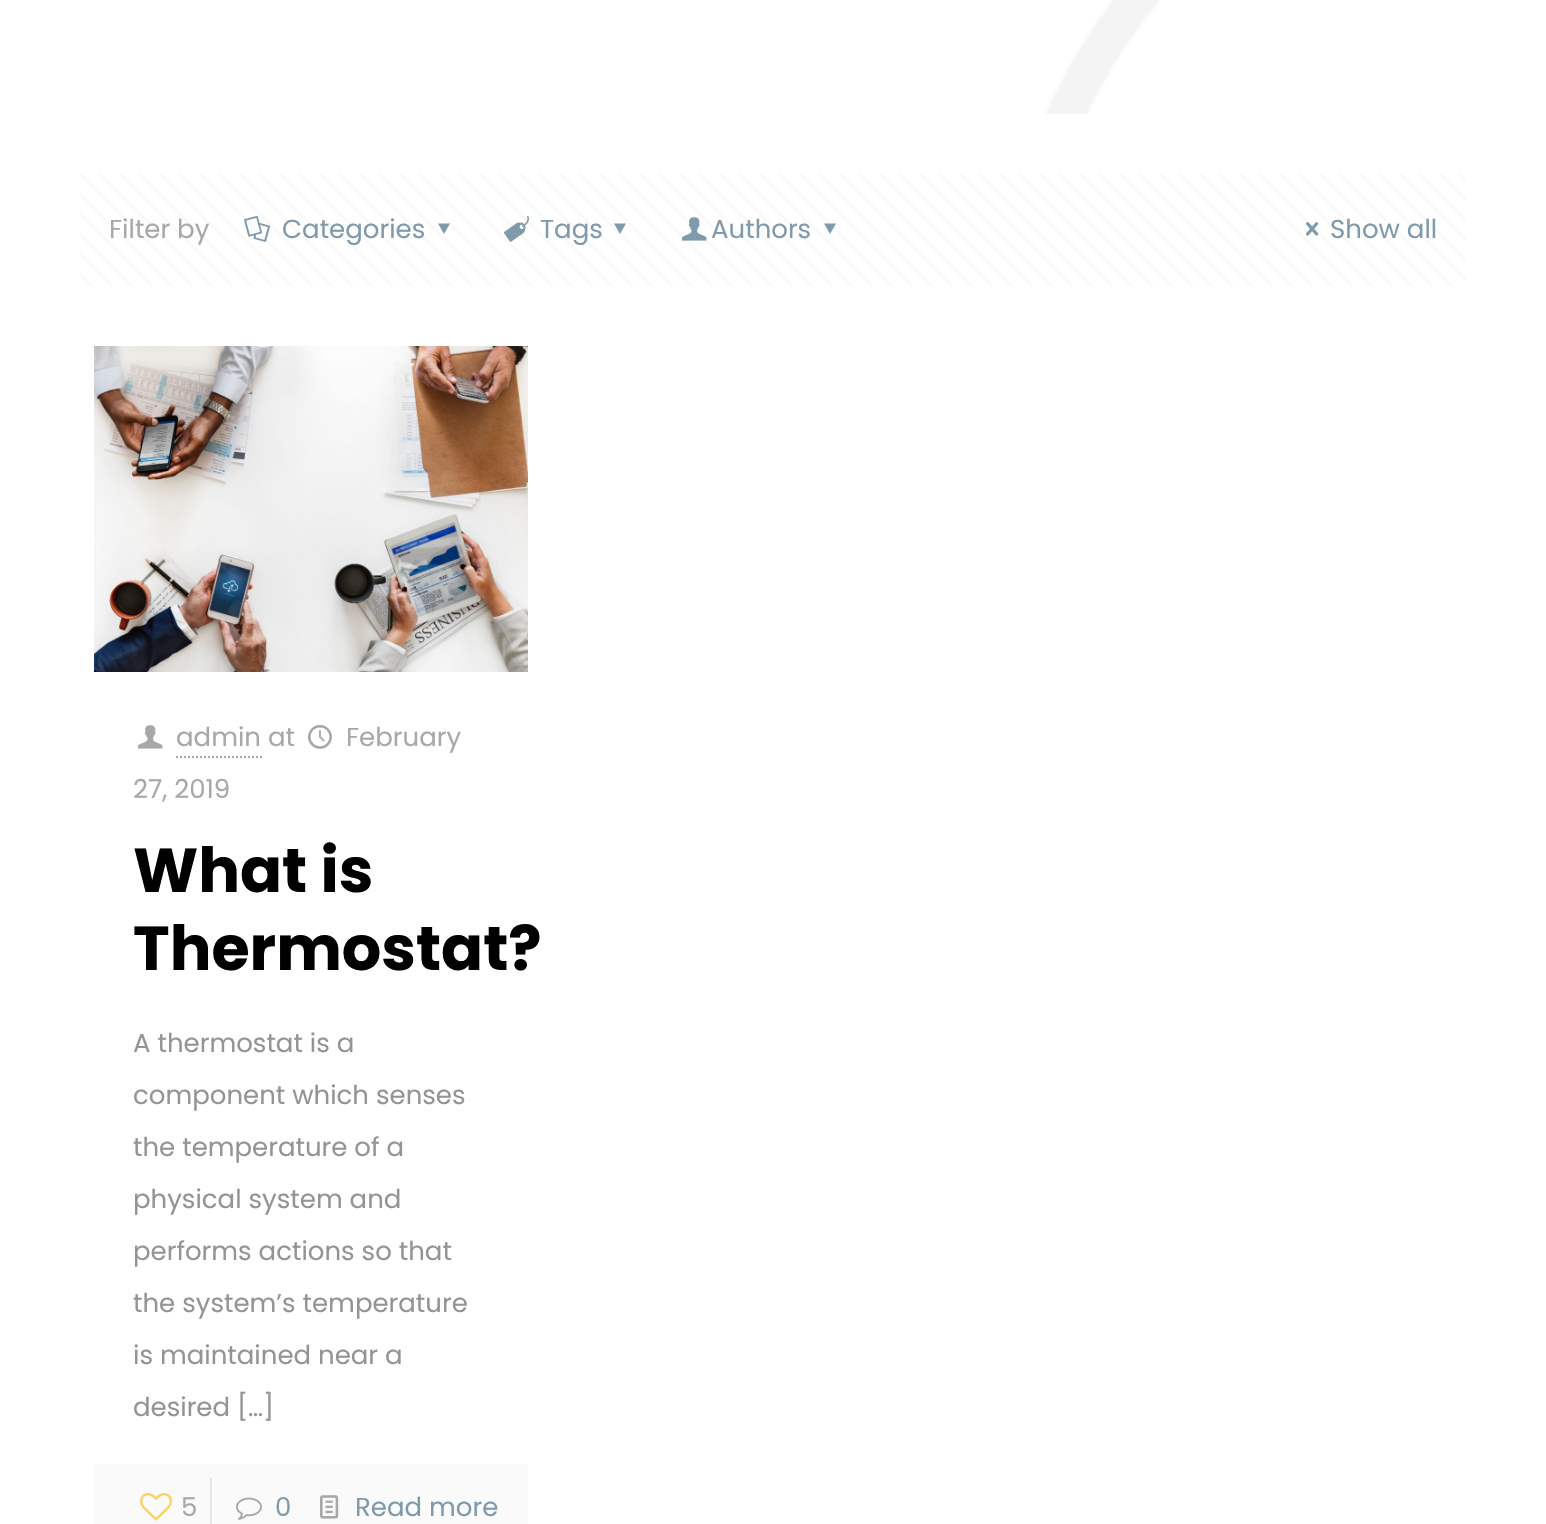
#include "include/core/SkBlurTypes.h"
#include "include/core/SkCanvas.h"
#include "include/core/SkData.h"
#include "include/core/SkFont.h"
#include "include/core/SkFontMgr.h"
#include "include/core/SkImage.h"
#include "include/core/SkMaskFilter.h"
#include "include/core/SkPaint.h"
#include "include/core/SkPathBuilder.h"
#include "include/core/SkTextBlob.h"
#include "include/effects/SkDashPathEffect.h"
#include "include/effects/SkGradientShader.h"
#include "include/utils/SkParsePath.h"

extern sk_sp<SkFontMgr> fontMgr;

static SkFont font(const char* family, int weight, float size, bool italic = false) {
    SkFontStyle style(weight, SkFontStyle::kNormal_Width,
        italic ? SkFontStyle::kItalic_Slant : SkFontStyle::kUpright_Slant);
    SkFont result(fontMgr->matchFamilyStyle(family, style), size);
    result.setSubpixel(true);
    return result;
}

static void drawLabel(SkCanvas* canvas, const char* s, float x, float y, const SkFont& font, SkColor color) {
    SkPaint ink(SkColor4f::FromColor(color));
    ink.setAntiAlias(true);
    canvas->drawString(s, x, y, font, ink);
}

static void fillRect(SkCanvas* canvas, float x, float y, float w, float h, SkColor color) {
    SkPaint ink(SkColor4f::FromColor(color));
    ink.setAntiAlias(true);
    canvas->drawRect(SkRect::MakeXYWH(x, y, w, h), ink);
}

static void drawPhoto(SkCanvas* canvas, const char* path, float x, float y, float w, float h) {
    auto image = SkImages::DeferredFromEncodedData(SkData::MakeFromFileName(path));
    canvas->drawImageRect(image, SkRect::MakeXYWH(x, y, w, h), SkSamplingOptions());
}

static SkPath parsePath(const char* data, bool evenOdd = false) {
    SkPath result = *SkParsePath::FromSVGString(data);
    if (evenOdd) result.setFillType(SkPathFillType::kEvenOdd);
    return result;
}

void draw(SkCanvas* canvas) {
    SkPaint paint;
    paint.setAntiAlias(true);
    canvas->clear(0xFFFFFFFF);
    drawPhoto(canvas, "assets/img1.png", 1045, 0, 115, 114);
    drawPhoto(canvas, "assets/img2.png", 80, 174, 1386, 112);
    SkFont font1 = font("Poppins", 400, 26);
    drawLabel(canvas, "Filter by", 109, 238, font1, 0xFFA8A8A8);
    drawPhoto(canvas, "assets/img3.png", 244, 215, 26, 27);
    drawLabel(canvas, "Categories", 282, 238, font1, 0xFF7F9AAA);
    paint.setColor(0xFF7F9AAA);
    canvas->drawPath(parsePath("M450 223.5L444 234L438 223.5Z"), paint);
    drawPhoto(canvas, "assets/img4.png", 504, 215, 25, 27);
    drawLabel(canvas, "Tags", 540, 238, font1, 0xFF7F9AAA);
    canvas->drawPath(parsePath("M626 223.5L620 234L614 223.5Z"), paint);
    drawPhoto(canvas, "assets/img5.png", 682, 217, 25, 24);
    drawLabel(canvas, "Authors", 711, 238, font1, 0xFF7F9AAA);
    canvas->drawPath(parsePath("M836 223.5L830 234L824 223.5Z"), paint);
    drawPhoto(canvas, "assets/img6.png", 1306, 222, 13, 14);
    drawLabel(canvas, "Show all", 1330, 238, font1, 0xFF7F9AAA);
    drawPhoto(canvas, "assets/img7.png", 94, 346, 434, 326);
    drawPhoto(canvas, "assets/img8.png", 308, 725, 24, 24);
    drawLabel(canvas, "February", 346, 746, font1, 0xFFA8A8A8);
    drawLabel(canvas, "27, 2019", 133, 798, font1, 0xFFA8A8A8);
    drawPhoto(canvas, "assets/img9.png", 138, 725, 25, 24);
    drawLabel(canvas, "admin at", 176, 746, font1, 0xFFA8A8A8);
    paint.setStroke(true);
    paint.setStrokeWidth(2);
    paint.setColor(0xFFA8A8A8);
    paint.setPathEffect(SkDashPathEffect::Make({{2, 2}}, 0));
    canvas->drawPath(parsePath("M176 757H262"), paint);
    paint.setPathEffect(nullptr);
    SkFont font2 = font("Poppins", 700, 62);
    drawLabel(canvas, "What is", 133, 892, font2, 0xFF000000);
    drawLabel(canvas, "Thermostat?", 133, 970, font2, 0xFF000000);
    drawLabel(canvas, "A thermostat is a", 133, 1052, font1, 0xFF949494);
    drawLabel(canvas, "component which senses", 133, 1104, font1, 0xFF949494);
    drawLabel(canvas, "the temperature of a", 133, 1156, font1, 0xFF949494);
    drawLabel(canvas, "physical system and", 133, 1208, font1, 0xFF949494);
    drawLabel(canvas, "performs actions so that", 133, 1260, font1, 0xFF949494);
    drawLabel(canvas, "the system’s temperature", 133, 1312, font1, 0xFF949494);
    drawLabel(canvas, "is maintained near a", 133, 1364, font1, 0xFF949494);
    drawLabel(canvas, "desired […]", 133, 1416, font1, 0xFF949494);
    fillRect(canvas, 94, 1464, 434, 60, 0xFFFAFAFA);
    drawPhoto(canvas, "assets/img10.png", 140, 1493, 32, 28);
    drawLabel(canvas, "5", 181, 1516, font1, 0xFFA8A8A8);
    fillRect(canvas, 210, 1478, 2, 46, 0xFFE6E6E6);
    drawPhoto(canvas, "assets/img11.png", 236, 1497, 26, 23);
    drawLabel(canvas, "0", 275, 1516, font1, 0xFF7F9AAA);
    drawPhoto(canvas, "assets/img12.png", 320, 1495, 19, 24);
    drawLabel(canvas, "Read more", 355, 1516, font1, 0xFF7F9AAA);
}
